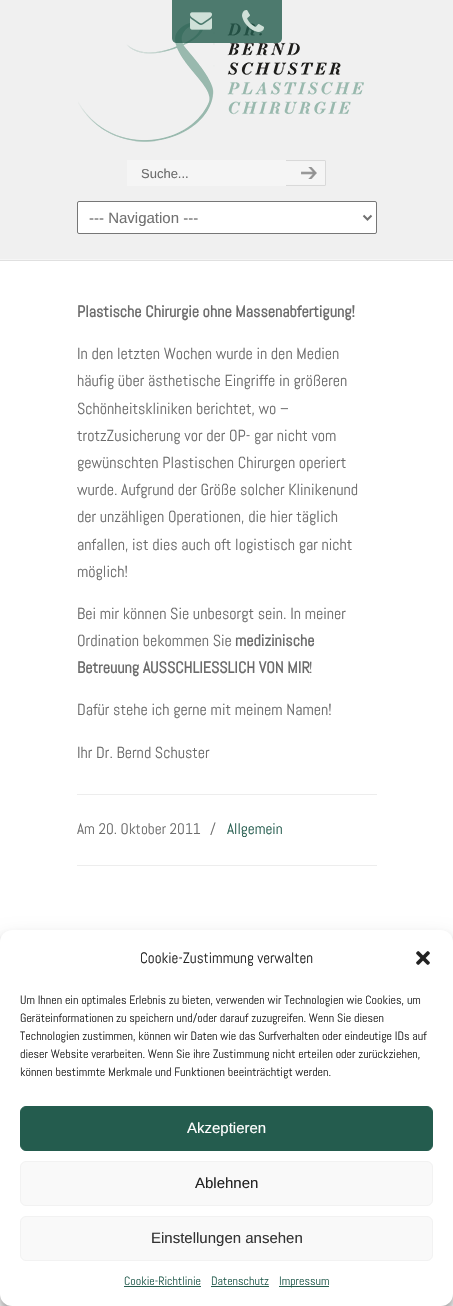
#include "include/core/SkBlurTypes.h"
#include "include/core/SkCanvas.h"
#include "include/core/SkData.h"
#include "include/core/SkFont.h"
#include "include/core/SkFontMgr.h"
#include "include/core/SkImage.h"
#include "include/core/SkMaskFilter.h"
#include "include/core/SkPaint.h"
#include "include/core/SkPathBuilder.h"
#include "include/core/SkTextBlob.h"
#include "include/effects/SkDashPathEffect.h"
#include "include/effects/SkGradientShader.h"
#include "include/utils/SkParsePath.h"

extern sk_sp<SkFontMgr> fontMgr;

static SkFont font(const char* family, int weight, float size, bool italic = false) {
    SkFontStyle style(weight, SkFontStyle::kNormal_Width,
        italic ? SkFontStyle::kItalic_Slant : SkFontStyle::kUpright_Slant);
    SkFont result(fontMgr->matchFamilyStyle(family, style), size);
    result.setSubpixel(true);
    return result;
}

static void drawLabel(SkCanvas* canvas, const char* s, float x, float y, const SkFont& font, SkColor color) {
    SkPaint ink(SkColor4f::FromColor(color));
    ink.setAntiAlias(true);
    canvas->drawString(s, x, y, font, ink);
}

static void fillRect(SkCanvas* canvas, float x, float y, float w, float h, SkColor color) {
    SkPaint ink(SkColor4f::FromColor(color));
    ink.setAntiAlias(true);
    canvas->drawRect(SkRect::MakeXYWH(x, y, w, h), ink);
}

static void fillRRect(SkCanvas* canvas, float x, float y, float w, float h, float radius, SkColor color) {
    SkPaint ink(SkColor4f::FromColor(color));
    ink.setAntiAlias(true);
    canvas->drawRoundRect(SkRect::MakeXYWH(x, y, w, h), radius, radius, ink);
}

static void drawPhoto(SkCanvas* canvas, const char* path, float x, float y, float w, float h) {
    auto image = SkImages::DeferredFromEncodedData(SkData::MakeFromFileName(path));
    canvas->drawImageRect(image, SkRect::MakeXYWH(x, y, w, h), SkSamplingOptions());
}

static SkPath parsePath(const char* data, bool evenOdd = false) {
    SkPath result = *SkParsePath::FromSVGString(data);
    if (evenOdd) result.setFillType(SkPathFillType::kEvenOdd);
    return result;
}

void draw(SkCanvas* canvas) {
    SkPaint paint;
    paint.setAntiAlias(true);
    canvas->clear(0xFFF0F0F0);
    drawPhoto(canvas, "assets/img3.png", 78, 22, 286, 120);
    paint.setColor(0xCC245C4E);
    canvas->drawPath(parsePath("M172 0H282V38C282 41 280 43 277 43H177C174 43 172 41 172 38Z"), paint);
    drawPhoto(canvas, "assets/img1.png", 190, 12, 22, 18);
    drawPhoto(canvas, "assets/img2.png", 242, 10, 22, 22);
    fillRect(canvas, 127, 160, 159, 26, 0xFFF5F5F5);
    SkFont font1 = font("Liberation Sans", 400, 13);
    drawLabel(canvas, "Suche...", 141, 178, font1, 0xFF6B6B6B);
    drawPhoto(canvas, "assets/img4.png", 286, 160, 40, 26);
    drawPhoto(canvas, "assets/img5.png", 0, 259, 453, 2);
    paint.setColor(0xFFFFFFFF);
    canvas->drawRoundRect(SkRect::MakeXYWH(77.5f, 201.5f, 299, 32), 1.5f, 1.5f, paint);
    paint.setStroke(true);
    paint.setStrokeWidth(1);
    paint.setColor(0xFF767676);
    canvas->drawRoundRect(SkRect::MakeXYWH(77.5f, 201.5f, 299, 32), 1.5f, 1.5f, paint);
    paint.setStrokeWidth(2);
    paint.setColor(0xFF717171);
    canvas->drawPath(parsePath("M363.5 215.5L367.5 219.5L371.5 215.5"), paint);
    SkFont font2 = font("Liberation Sans", 400, 15);
    drawLabel(canvas, "--- Navigation ---", 89, 223, font2, 0xFF717171);
    fillRect(canvas, 0, 261, 453, 1045, 0xFFFFFFFF);
    SkFont font3 = font("Abel", 700, 16);
    drawLabel(canvas, "Plastische Chirurgie ohne Massenabfertigung!", 77, 317, font3, 0xFF6B6B6B);
    SkFont font4 = font("Abel", 400, 16);
    drawLabel(canvas, "In den letzten Wochen wurde in den Medien", 77, 359, font4, 0xFF6B6B6B);
    drawLabel(canvas, "häufig über ästhetische Eingriffe in größeren", 77, 386, font4, 0xFF6B6B6B);
    drawLabel(canvas, "Schönheitskliniken berichtet, wo –", 77, 414, font4, 0xFF6B6B6B);
    drawLabel(canvas, "trotzZusicherung vor der OP- gar nicht vom", 77, 441, font4, 0xFF6B6B6B);
    drawLabel(canvas, "gewünschten Plastischen Chirurgen operiert", 77, 468, font4, 0xFF6B6B6B);
    drawLabel(canvas, "wurde. Aufgrund der Größe solcher Klinikenund", 77, 495, font4, 0xFF6B6B6B);
    drawLabel(canvas, "der unzähligen Operationen, die hier täglich", 77, 522, font4, 0xFF6B6B6B);
    drawLabel(canvas, "anfallen, ist dies auch oft logistisch gar nicht", 77, 550, font4, 0xFF6B6B6B);
    drawLabel(canvas, "möglich!", 77, 577, font4, 0xFF6B6B6B);
    drawLabel(canvas, "Bei mir können Sie unbesorgt sein. In meiner", 77, 619, font4, 0xFF6B6B6B);
    drawLabel(canvas, "Ordination bekommen Sie", 77, 646, font4, 0xFF6B6B6B);
    drawLabel(canvas, "medizinische", 235, 646, font3, 0xFF6B6B6B);
    drawLabel(canvas, "Betreuung AUSSCHLIESSLICH VON MIR", 77, 673, font3, 0xFF6B6B6B);
    drawLabel(canvas, "!", 309, 673, font4, 0xFF6B6B6B);
    drawLabel(canvas, "Dafür stehe ich gerne mit meinem Namen!", 77, 715, font4, 0xFF6B6B6B);
    drawLabel(canvas, "Ihr Dr. Bernd Schuster", 77, 758, font4, 0xFF6B6B6B);
    fillRect(canvas, 77, 794, 300, 1, 0xFFEDEDED);
    SkFont font5 = font("Abel", 400, 15.25f);
    drawLabel(canvas, "Am 20. Oktober 2011", 77, 834, font5, 0xFF6B6B6B);
    drawLabel(canvas, "/", 210, 834, font5, 0xFF6B6B6B);
    drawLabel(canvas, "Allgemein", 227, 834, font5, 0xFF245C4E);
    fillRect(canvas, 77, 865, 300, 1, 0xFFEDEDED);
    paint.setStroke(false);
    paint.setColor(0x3B000000);
    paint.setMaskFilter(SkMaskFilter::MakeBlur(kNormal_SkBlurStyle, 3));
    canvas->drawRoundRect(SkRect::MakeXYWH(0, 936, 453, 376), 12, 12, paint);
    paint.setMaskFilter(nullptr);
    paint.setColor(0x30000000);
    paint.setMaskFilter(SkMaskFilter::MakeBlur(kNormal_SkBlurStyle, 10));
    canvas->drawRoundRect(SkRect::MakeXYWH(0, 940, 453, 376), 12, 12, paint);
    paint.setMaskFilter(nullptr);
    fillRRect(canvas, 0, 930, 453, 376, 12, 0xFFFFFFFF);
    SkFont font6 = font("Abel", 400, 15);
    drawLabel(canvas, "Cookie-Zustimmung verwalten", 140, 963, font6, 0xFF222222);
    drawPhoto(canvas, "assets/img6.png", 416, 951, 14, 14);
    SkFont font7 = font("Abel", 400, 12);
    drawLabel(canvas, "Um Ihnen ein optimales Erlebnis zu bieten, verwenden wir Technologien wie Cookies, um", 20, 1004, font7, 0xFF222222);
    drawLabel(canvas, "Geräteinformationen zu speichern und/oder darauf zuzugreifen. Wenn Sie diesen", 20, 1022, font7, 0xFF222222);
    drawLabel(canvas, "Technologien zustimmen, können wir Daten wie das Surfverhalten oder eindeutige IDs auf", 20, 1040, font7, 0xFF222222);
    drawLabel(canvas, "dieser Website verarbeiten. Wenn Sie ihre Zustimmung nicht erteilen oder zurückziehen,", 20, 1058, font7, 0xFF222222);
    drawLabel(canvas, "können bestimmte Merkmale und Funktionen beeinträchtigt werden.", 20, 1076, font7, 0xFF222222);
    paint.setColor(0xFF245C4E);
    canvas->drawRoundRect(SkRect::MakeXYWH(20.5f, 1106.5f, 412, 44), 5.5f, 5.5f, paint);
    paint.setStroke(true);
    paint.setStrokeWidth(1);
    canvas->drawRoundRect(SkRect::MakeXYWH(20.5f, 1106.5f, 412, 44), 5.5f, 5.5f, paint);
    drawLabel(canvas, "Akzeptieren", 187, 1133, font2, 0xFFFFFFFF);
    paint.setStroke(false);
    paint.setColor(0xFFF9F9F9);
    canvas->drawRoundRect(SkRect::MakeXYWH(20.5f, 1161.5f, 412, 44), 5.5f, 5.5f, paint);
    paint.setStroke(true);
    paint.setColor(0xFFF2F2F2);
    canvas->drawRoundRect(SkRect::MakeXYWH(20.5f, 1161.5f, 412, 44), 5.5f, 5.5f, paint);
    drawLabel(canvas, "Ablehnen", 195, 1188, font2, 0xFF222222);
    paint.setStroke(false);
    paint.setColor(0xFFF9F9F9);
    canvas->drawRoundRect(SkRect::MakeXYWH(20.5f, 1216.5f, 412, 44), 5.5f, 5.5f, paint);
    paint.setStroke(true);
    paint.setColor(0xFFF2F2F2);
    canvas->drawRoundRect(SkRect::MakeXYWH(20.5f, 1216.5f, 412, 44), 5.5f, 5.5f, paint);
    drawLabel(canvas, "Einstellungen ansehen", 151, 1243, font2, 0xFF333333);
    drawLabel(canvas, "Cookie-Richtlinie", 124, 1285, font7, 0xFF245C4E);
    fillRect(canvas, 124, 1286, 77, 1, 0xFF245C4E);
    drawLabel(canvas, "Datenschutz", 211, 1285, font7, 0xFF245C4E);
    fillRect(canvas, 211, 1286, 58, 1, 0xFF245C4E);
    fillRect(canvas, 279, 1286, 50, 1, 0xFF245C4E);
    drawLabel(canvas, "Impressum", 279, 1285, font7, 0xFF245C4E);
}
